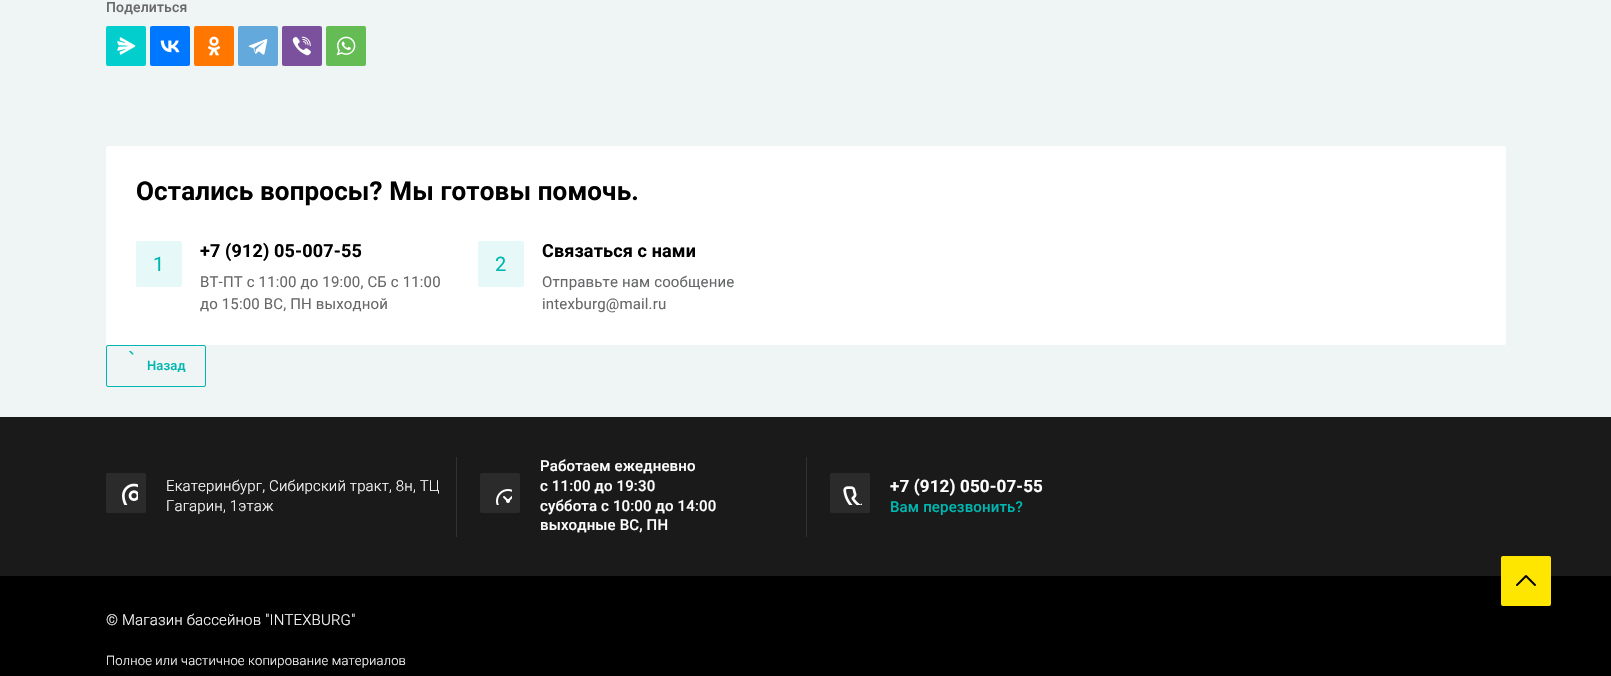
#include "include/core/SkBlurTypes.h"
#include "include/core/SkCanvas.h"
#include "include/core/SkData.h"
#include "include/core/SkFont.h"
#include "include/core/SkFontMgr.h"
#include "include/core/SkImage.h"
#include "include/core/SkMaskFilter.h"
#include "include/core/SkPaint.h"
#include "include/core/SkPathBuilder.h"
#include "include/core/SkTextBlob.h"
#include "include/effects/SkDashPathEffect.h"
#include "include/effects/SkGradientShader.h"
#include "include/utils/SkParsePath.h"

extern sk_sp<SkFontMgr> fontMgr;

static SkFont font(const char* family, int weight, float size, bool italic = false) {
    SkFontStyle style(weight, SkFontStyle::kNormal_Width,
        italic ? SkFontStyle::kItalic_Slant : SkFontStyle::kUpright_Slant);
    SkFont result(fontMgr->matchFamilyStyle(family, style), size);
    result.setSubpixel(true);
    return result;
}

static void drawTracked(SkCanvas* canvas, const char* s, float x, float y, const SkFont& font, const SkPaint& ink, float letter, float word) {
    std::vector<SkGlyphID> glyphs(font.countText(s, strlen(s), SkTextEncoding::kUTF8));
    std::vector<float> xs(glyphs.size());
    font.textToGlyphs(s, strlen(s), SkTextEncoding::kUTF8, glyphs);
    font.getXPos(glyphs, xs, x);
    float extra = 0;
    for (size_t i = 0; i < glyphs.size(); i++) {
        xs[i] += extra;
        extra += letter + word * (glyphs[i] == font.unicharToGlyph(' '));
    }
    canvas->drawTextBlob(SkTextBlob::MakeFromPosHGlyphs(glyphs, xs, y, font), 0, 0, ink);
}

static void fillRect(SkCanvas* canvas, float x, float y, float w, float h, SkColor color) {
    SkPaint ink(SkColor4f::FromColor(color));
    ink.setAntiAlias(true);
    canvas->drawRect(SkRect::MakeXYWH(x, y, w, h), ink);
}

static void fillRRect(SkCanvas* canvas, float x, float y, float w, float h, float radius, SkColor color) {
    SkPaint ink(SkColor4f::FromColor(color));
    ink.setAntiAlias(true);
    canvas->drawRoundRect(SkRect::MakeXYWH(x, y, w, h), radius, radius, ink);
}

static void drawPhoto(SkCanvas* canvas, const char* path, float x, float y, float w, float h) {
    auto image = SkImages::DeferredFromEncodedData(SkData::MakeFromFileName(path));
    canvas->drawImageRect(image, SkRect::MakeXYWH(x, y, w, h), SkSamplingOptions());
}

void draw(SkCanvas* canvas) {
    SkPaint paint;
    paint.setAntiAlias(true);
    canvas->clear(0xFFEFF4F4);
    SkFont font1 = font("Roboto", 500, 14);
    paint.setColor(0xFF676869);
    drawTracked(canvas, "Поделиться", 106, 12, font1, paint, 0.15f, 0);
    fillRRect(canvas, 106, 26, 40, 40, 2, 0xFF03CECE);
    drawPhoto(canvas, "assets/img1.png", 117, 37, 19, 18);
    fillRRect(canvas, 150, 26, 40, 40, 2, 0xFF0077FF);
    drawPhoto(canvas, "assets/img2.png", 160, 40, 20, 13);
    fillRRect(canvas, 194, 26, 40, 40, 2, 0xFFFF7700);
    drawPhoto(canvas, "assets/img3.png", 207, 36, 14, 20);
    fillRRect(canvas, 238, 26, 40, 40, 2, 0xFF64A9DC);
    drawPhoto(canvas, "assets/img4.png", 248, 39, 20, 16);
    fillRRect(canvas, 282, 26, 40, 40, 2, 0xFF7B519D);
    drawPhoto(canvas, "assets/img5.png", 292, 36, 19, 20);
    fillRRect(canvas, 326, 26, 40, 40, 2, 0xFF65BC54);
    drawPhoto(canvas, "assets/img6.png", 336, 36, 20, 20);
    fillRRect(canvas, 106, 146, 1400, 199, 2, 0xFFFFFFFF);
    SkFont font2 = font("Roboto", 700, 26);
    paint.setColor(0xFF000000);
    drawTracked(canvas, "Остались вопросы? Мы готовы помочь.", 136, 200, font2, paint, 0.15f, 0);
    fillRRect(canvas, 136, 241, 46, 46, 2, 0xFFE6F8F7);
    SkFont font3 = font("Roboto", 400, 20);
    paint.setColor(0xFF00B6B0);
    drawTracked(canvas, "1", 153, 271, font3, paint, 0.15f, 0);
    SkFont font4 = font("Roboto", 700, 18);
    paint.setColor(0xFF000000);
    drawTracked(canvas, "+7 (912) 05-007-55", 200, 257, font4, paint, 0.15f, 0);
    SkFont font5 = font("Roboto", 400, 15);
    paint.setColor(0xFF676869);
    drawTracked(canvas, "ВТ-ПТ с 11:00 до 19:00, СБ с 11:00", 200, 287, font5, paint, 0.15f, 0);
    drawTracked(canvas, "до 15:00 ВС, ПН выходной", 200, 309, font5, paint, 0.15f, 0);
    fillRRect(canvas, 478, 241, 46, 46, 2, 0xFFE6F8F7);
    paint.setColor(0xFF00B6B0);
    drawTracked(canvas, "2", 495, 271, font3, paint, 0.15f, 0);
    paint.setColor(0xFF000000);
    drawTracked(canvas, "Связаться с нами", 542, 257, font4, paint, 0.15f, 0);
    paint.setColor(0xFF676869);
    drawTracked(canvas, "Отправьте нам сообщение", 542, 287, font5, paint, 0.15f, 0);
    drawTracked(canvas, "intexburg@mail.ru", 542, 309, font5, paint, 0.15f, 0);
    paint.setStroke(true);
    paint.setStrokeWidth(1);
    paint.setColor(0xFF00B6B0);
    canvas->drawRoundRect(SkRect::MakeXYWH(106.5f, 345.5f, 99, 41), 1.5f, 1.5f, paint);
    drawPhoto(canvas, "assets/img7.png", 129, 351, 5, 4);
    SkFont font6 = font("Roboto", 500, 13);
    paint.setStroke(false);
    drawTracked(canvas, "Назад", 147, 370, font6, paint, 0.15f, 0);
    fillRect(canvas, 0, 576, 1611, 100, 0xFF000000);
    fillRect(canvas, 0, 417, 1611, 159, 0xFF1A1A1A);
    fillRRect(canvas, 106, 473, 40, 40, 2, 0xFF2B2B2B);
    drawPhoto(canvas, "assets/img8.png", 122, 483, 16, 22);
    SkFont font7 = font("Roboto", 300, 15);
    paint.setColor(0xFFFFFFFF);
    drawTracked(canvas, "Екатеринбург, Сибирский тракт, 8н, ТЦ", 166, 491, font7, paint, 0.15f, 0);
    drawTracked(canvas, "Гагарин, 1этаж", 166, 511, font7, paint, 0.15f, 0);
    fillRect(canvas, 456, 457, 1, 80, 0xFF313131);
    fillRRect(canvas, 480, 473, 40, 40, 2, 0xFF2B2B2B);
    drawPhoto(canvas, "assets/img9.png", 496, 489, 16, 16);
    SkFont font8 = font("Roboto", 500, 15);
    drawTracked(canvas, "Работаем ежедневно", 540, 471, font8, paint, 0.15f, 0);
    drawTracked(canvas, "с 11:00 до 19:30", 540, 491, font8, paint, 0.15f, 0);
    drawTracked(canvas, "суббота с 10:00 до 14:00", 540, 511, font8, paint, 0.15f, 0);
    drawTracked(canvas, "выходные ВС, ПН", 540, 530, font8, paint, 0.15f, 0);
    fillRect(canvas, 806, 457, 1, 80, 0xFF313131);
    fillRRect(canvas, 830, 473, 40, 40, 2, 0xFF2B2B2B);
    drawPhoto(canvas, "assets/img10.png", 843, 486, 19, 19);
    SkFont font9 = font("Roboto", 700, 17);
    drawTracked(canvas, "+7 (912) 050-07-55", 890, 492, font9, paint, 0.15f, 0);
    paint.setColor(0xFF00B6B0);
    drawTracked(canvas, "Вам перезвонить?", 890, 512, font8, paint, 0.15f, 0);
    paint.setColor(0xFFFFFFFF);
    drawTracked(canvas, "© Магазин бассейнов \"INTEXBURG\"", 106, 625, font7, paint, 0.15f, 0);
    SkFont font10 = font("Roboto", 300, 13);
    drawTracked(canvas, "Полное или частичное копирование материалов", 106, 665, font10, paint, 0.15f, 0);
    fillRRect(canvas, 1501, 556, 50, 50, 2, 0xFFFFE600);
    drawPhoto(canvas, "assets/img11.png", 1516, 575, 20, 11);
}
